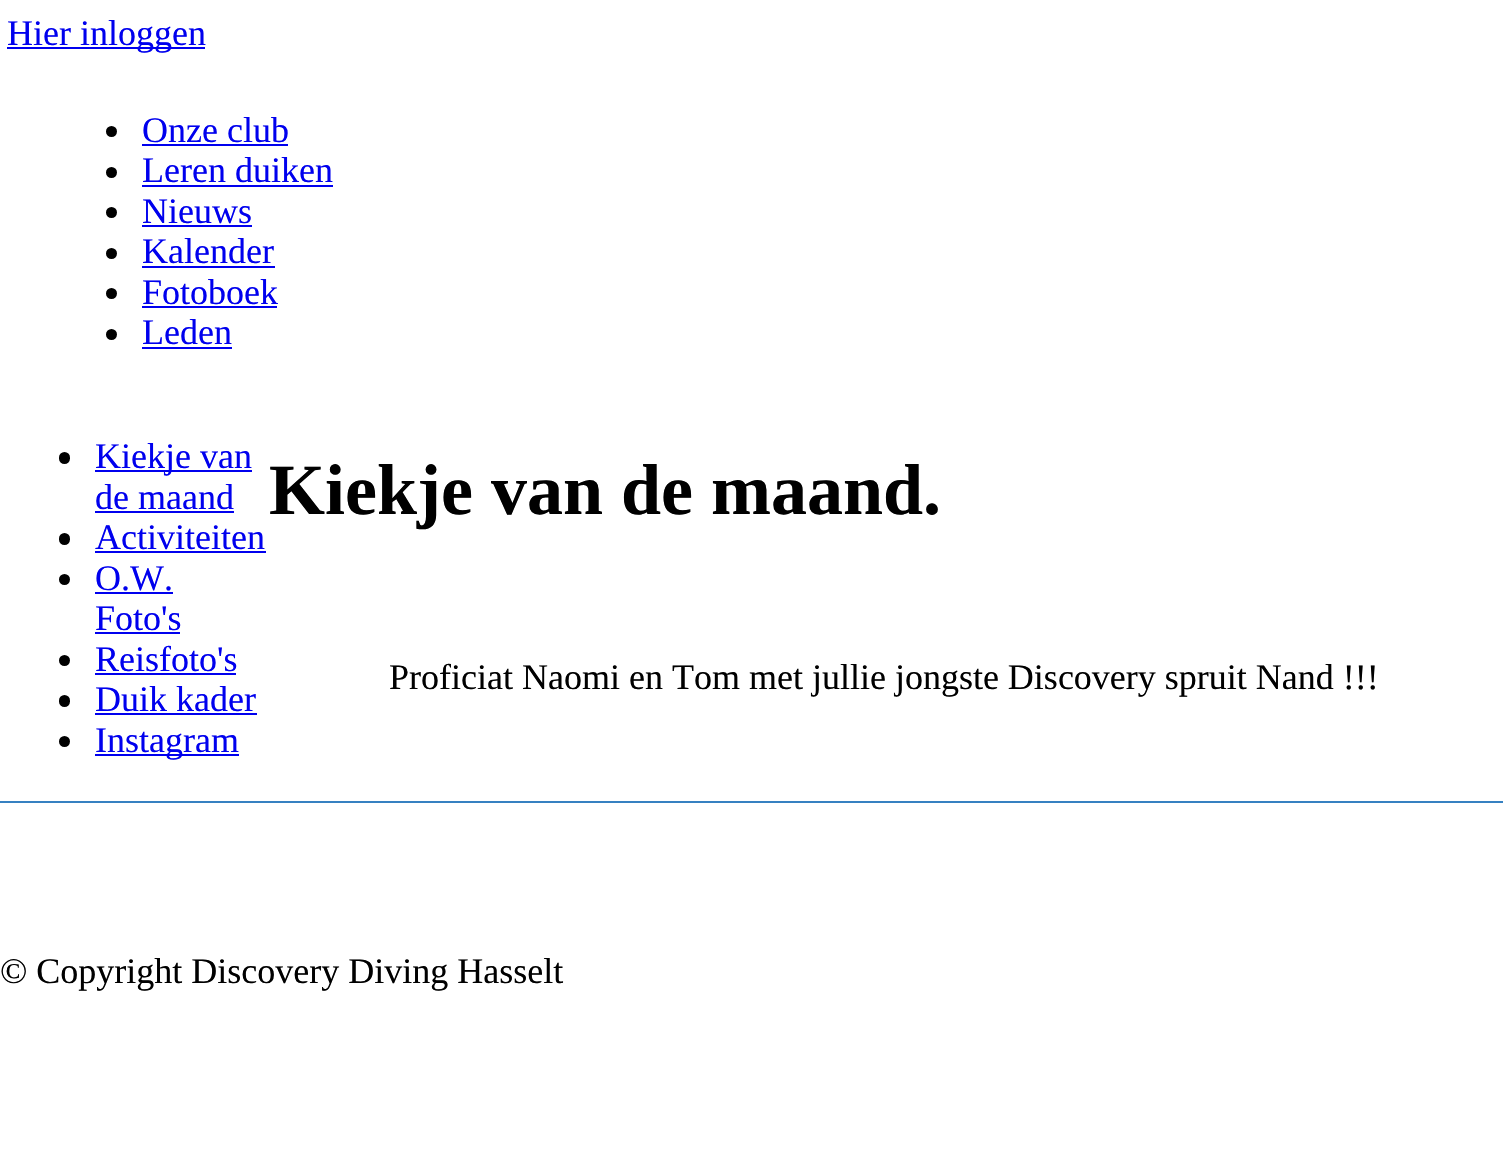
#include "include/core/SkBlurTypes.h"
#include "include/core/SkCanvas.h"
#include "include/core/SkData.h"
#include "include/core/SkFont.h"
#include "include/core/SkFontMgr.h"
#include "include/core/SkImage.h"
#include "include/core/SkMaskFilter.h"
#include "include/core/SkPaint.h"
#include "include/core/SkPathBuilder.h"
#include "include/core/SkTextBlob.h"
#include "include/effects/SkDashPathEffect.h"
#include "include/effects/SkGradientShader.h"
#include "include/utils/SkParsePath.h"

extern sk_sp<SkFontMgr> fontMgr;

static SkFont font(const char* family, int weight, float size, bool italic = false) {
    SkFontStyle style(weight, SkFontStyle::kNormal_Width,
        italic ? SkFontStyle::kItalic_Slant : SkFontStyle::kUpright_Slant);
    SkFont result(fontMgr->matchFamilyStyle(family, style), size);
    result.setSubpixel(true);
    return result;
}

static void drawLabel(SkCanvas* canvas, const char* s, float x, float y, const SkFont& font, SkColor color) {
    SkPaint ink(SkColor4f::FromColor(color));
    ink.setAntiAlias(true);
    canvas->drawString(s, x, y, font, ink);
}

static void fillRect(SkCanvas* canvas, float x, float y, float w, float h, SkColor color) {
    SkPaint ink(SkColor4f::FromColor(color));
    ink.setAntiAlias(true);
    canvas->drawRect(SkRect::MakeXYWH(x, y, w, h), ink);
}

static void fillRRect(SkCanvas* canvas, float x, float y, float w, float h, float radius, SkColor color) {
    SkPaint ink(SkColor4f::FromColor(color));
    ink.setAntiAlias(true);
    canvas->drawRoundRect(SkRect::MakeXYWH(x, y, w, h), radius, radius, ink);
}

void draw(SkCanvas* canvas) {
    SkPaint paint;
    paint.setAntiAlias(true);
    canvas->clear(0xFFFFFFFF);
    fillRect(canvas, 7, 47, 198, 2, 0xFF0000EE);
    SkFont font1 = font("Liberation Serif", 400, 36);
    drawLabel(canvas, "Hier inloggen", 7, 45, font1, 0xFF0000EE);
    paint.setColor(0xFF000000);
    canvas->drawCircle(111.5f, 131.5f, 5.5f, paint);
    drawLabel(canvas, "Onze club", 142, 142, font1, 0xFF0000EE);
    fillRect(canvas, 142, 144, 146, 2, 0xFF0000EE);
    canvas->drawCircle(111.5f, 172.5f, 5.5f, paint);
    drawLabel(canvas, "Leren duiken", 142, 182, font1, 0xFF0000EE);
    fillRect(canvas, 142, 185, 191, 2, 0xFF0000EE);
    canvas->drawCircle(111.5f, 212.5f, 5.5f, paint);
    drawLabel(canvas, "Nieuws", 142, 223, font1, 0xFF0000EE);
    fillRect(canvas, 142, 225, 110, 2, 0xFF0000EE);
    canvas->drawCircle(111.5f, 253.5f, 5.5f, paint);
    drawLabel(canvas, "Kalender", 142, 263, font1, 0xFF0000EE);
    fillRect(canvas, 142, 266, 133, 2, 0xFF0000EE);
    canvas->drawCircle(111.5f, 293.5f, 5.5f, paint);
    drawLabel(canvas, "Fotoboek", 142, 304, font1, 0xFF0000EE);
    fillRect(canvas, 142, 306, 135, 2, 0xFF0000EE);
    canvas->drawCircle(111.5f, 334.5f, 5.5f, paint);
    drawLabel(canvas, "Leden", 142, 344, font1, 0xFF0000EE);
    fillRect(canvas, 142, 347, 90, 2, 0xFF0000EE);
    fillRRect(canvas, 59, 452, 11, 12, 5.5f, 0xFF000000);
    fillRect(canvas, 95, 470, 157, 2, 0xFF0000EE);
    drawLabel(canvas, "Kiekje van", 95, 468, font1, 0xFF0000EE);
    drawLabel(canvas, "de maand", 95, 509, font1, 0xFF0000EE);
    fillRect(canvas, 95, 511, 139, 2, 0xFF0000EE);
    fillRRect(canvas, 59, 533, 11, 12, 5.5f, 0xFF000000);
    drawLabel(canvas, "Activiteiten", 95, 549, font1, 0xFF0000EE);
    fillRect(canvas, 95, 551, 171, 2, 0xFF0000EE);
    canvas->drawCircle(64.5f, 579.5f, 5.5f, paint);
    drawLabel(canvas, "O.W.", 95, 590, font1, 0xFF0000EE);
    fillRect(canvas, 95, 592, 78, 2, 0xFF0000EE);
    drawLabel(canvas, "Foto's", 95, 630, font1, 0xFF0000EE);
    fillRect(canvas, 95, 632, 85, 2, 0xFF0000EE);
    canvas->drawCircle(64.5f, 660.5f, 5.5f, paint);
    drawLabel(canvas, "Reisfoto's", 95, 671, font1, 0xFF0000EE);
    fillRect(canvas, 95, 673, 141, 2, 0xFF0000EE);
    fillRRect(canvas, 59, 695, 11, 12, 5.5f, 0xFF000000);
    drawLabel(canvas, "Duik kader", 95, 711, font1, 0xFF0000EE);
    fillRect(canvas, 95, 713, 162, 2, 0xFF0000EE);
    canvas->drawCircle(64.5f, 741.5f, 5.5f, paint);
    fillRect(canvas, 95, 754, 144, 2, 0xFF0000EE);
    drawLabel(canvas, "Instagram", 95, 752, font1, 0xFF0000EE);
    SkFont font2 = font("Liberation Serif", 700, 72);
    drawLabel(canvas, "Kiekje van de maand.", 269, 514, font2, 0xFF000000);
    drawLabel(canvas, "Proficiat Naomi en Tom met jullie jongste Discovery spruit Nand !!!", 389, 689, font1, 0xFF000000);
    fillRect(canvas, 0, 801, 1503, 2, 0xFF3681C1);
    drawLabel(canvas, "© Copyright Discovery Diving Hasselt", 0, 983, font1, 0xFF000000);
}
